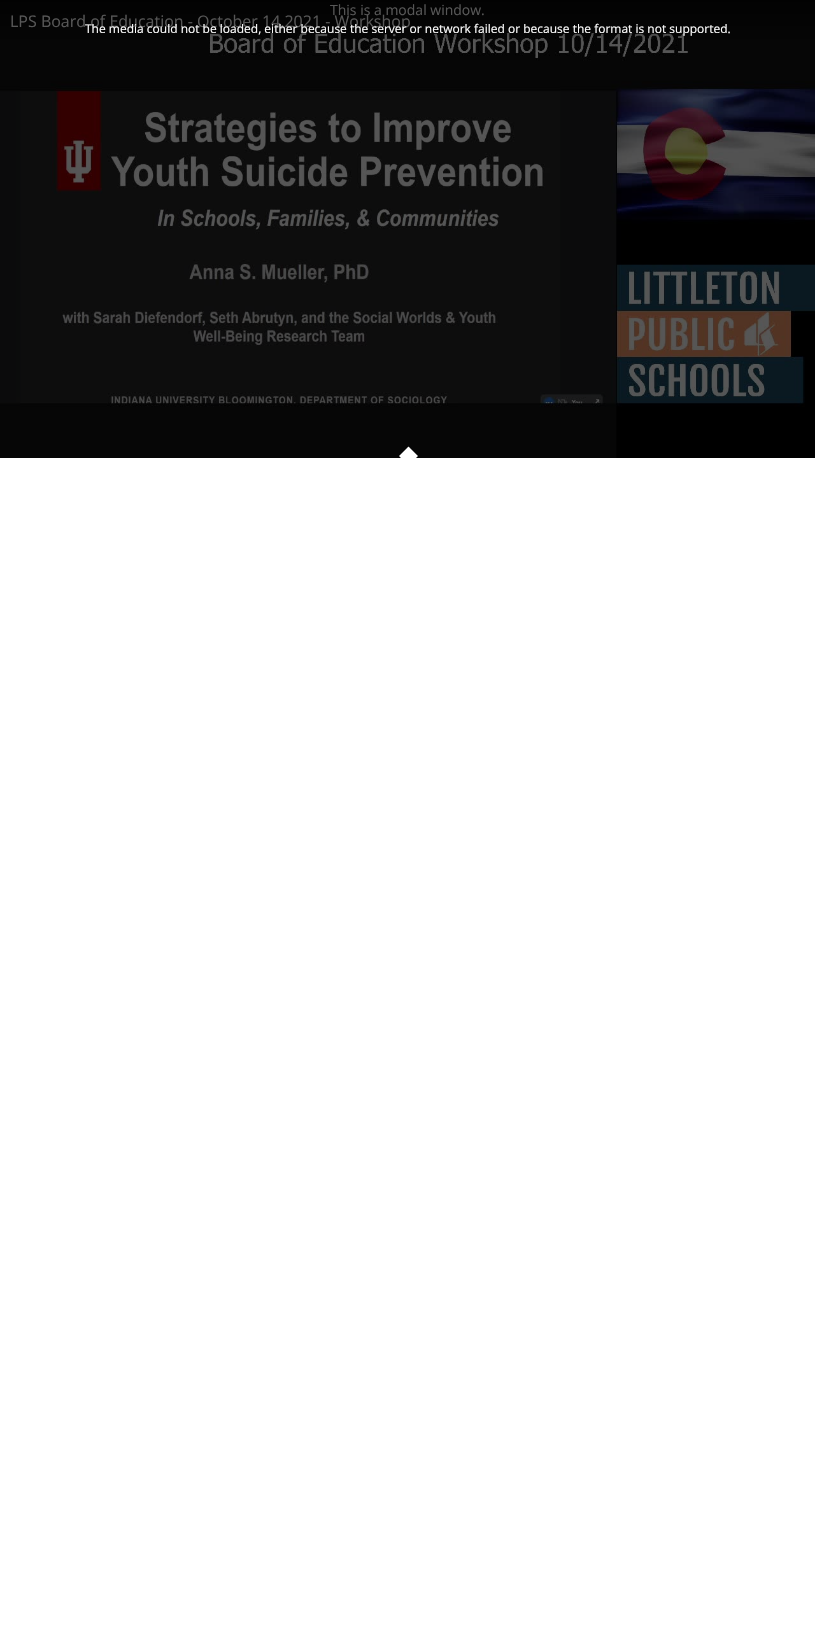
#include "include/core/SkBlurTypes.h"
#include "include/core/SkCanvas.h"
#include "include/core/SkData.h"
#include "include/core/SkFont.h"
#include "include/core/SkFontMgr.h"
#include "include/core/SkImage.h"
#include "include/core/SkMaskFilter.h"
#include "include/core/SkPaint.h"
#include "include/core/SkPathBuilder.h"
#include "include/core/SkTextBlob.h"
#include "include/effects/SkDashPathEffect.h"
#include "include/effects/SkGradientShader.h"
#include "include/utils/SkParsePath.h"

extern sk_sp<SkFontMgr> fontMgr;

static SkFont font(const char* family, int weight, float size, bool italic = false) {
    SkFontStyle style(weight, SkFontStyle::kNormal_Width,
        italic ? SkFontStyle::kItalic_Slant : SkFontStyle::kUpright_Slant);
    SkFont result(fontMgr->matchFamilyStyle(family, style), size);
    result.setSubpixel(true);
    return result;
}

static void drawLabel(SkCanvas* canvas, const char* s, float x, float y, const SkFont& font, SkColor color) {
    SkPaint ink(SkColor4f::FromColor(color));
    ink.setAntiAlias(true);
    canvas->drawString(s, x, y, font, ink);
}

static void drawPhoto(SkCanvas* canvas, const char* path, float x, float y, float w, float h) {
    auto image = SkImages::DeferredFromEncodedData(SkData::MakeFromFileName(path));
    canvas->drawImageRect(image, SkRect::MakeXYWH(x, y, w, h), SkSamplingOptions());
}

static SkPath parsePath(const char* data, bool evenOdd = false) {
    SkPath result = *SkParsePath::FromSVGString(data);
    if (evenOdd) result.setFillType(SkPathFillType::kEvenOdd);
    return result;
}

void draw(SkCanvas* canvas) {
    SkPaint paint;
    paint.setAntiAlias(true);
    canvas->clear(0xFFFFFFFF);
    drawPhoto(canvas, "assets/img1.png", 0, 0, 815, 458);
    SkFont font1 = font("Open Sans", 400, 14);
    drawLabel(canvas, "This is a modal window.", 330, 15, font1, 0xFF575757);
    canvas->save();
    canvas->clipRect(SkRect::MakeXYWH(0, 0, 815, 458));
    paint.setColor(0xFFFFFFFF);
    canvas->drawPath(parsePath("M409 447L417.5 455.5C418 455.5 418 456.5 417.5 456.5L409 465C409 465.5 408 465.5 408 465L399.5 456.5C399 456.5 399 455.5 399.5 455.5L408 447C408 446.5 409 446.5 409 447Z"), paint);
    canvas->restore();
    SkFont font2 = font("Open Sans", 400, 16);
    drawLabel(canvas, "LPS Board of Education - October 14,2021 - Workshop", 10, 27, font2, 0xFF575757);
    SkFont font3 = font("Open Sans", 400, 12);
    drawLabel(canvas, "The media could not be loaded, either because the server or network failed or because the format is not supported.", 85, 33, font3, 0xFFFFFFFF);
}
